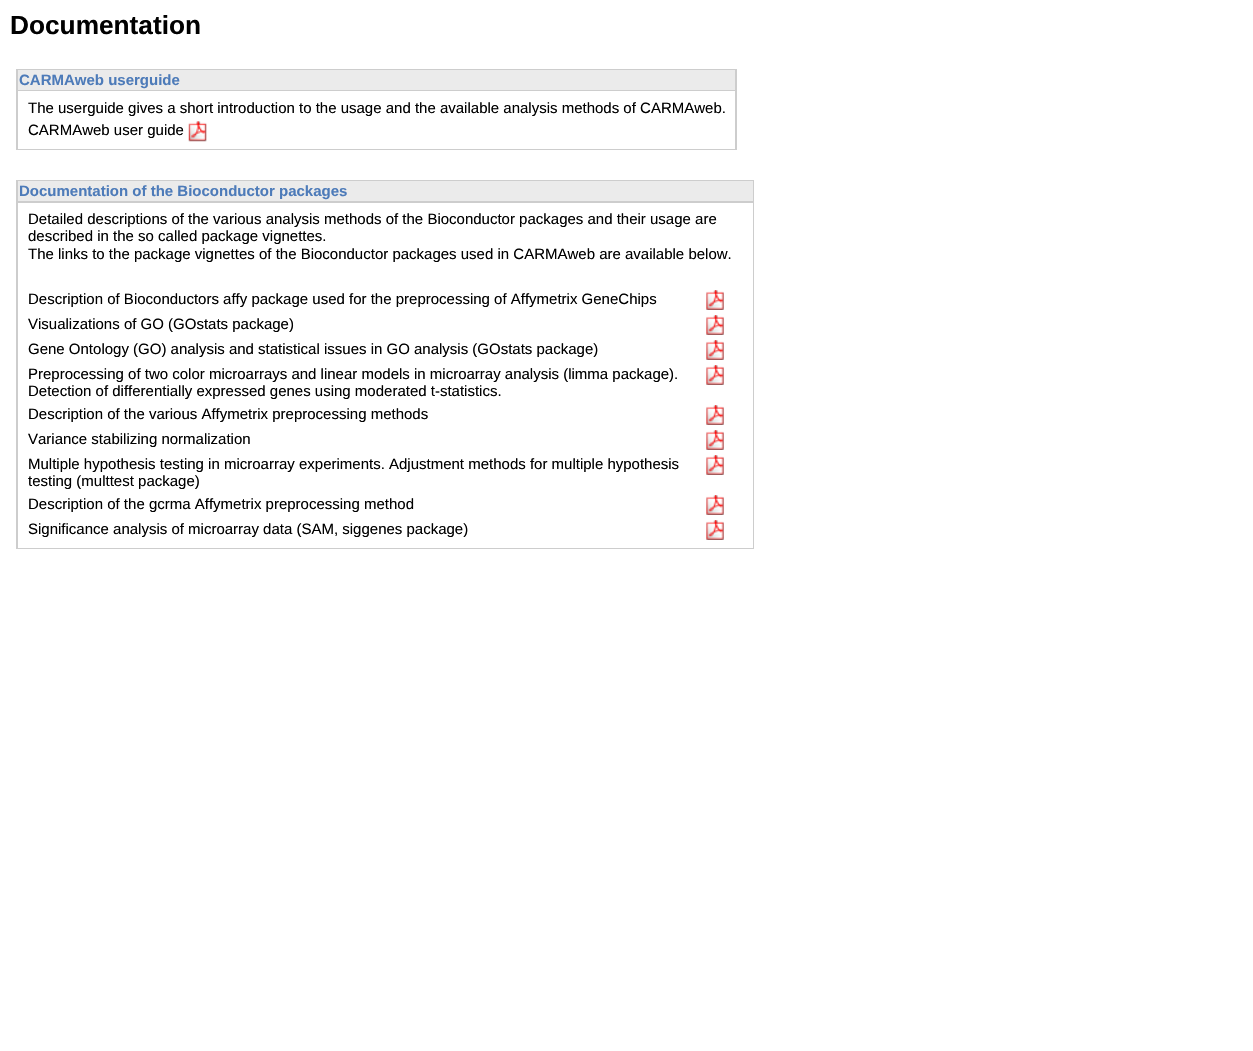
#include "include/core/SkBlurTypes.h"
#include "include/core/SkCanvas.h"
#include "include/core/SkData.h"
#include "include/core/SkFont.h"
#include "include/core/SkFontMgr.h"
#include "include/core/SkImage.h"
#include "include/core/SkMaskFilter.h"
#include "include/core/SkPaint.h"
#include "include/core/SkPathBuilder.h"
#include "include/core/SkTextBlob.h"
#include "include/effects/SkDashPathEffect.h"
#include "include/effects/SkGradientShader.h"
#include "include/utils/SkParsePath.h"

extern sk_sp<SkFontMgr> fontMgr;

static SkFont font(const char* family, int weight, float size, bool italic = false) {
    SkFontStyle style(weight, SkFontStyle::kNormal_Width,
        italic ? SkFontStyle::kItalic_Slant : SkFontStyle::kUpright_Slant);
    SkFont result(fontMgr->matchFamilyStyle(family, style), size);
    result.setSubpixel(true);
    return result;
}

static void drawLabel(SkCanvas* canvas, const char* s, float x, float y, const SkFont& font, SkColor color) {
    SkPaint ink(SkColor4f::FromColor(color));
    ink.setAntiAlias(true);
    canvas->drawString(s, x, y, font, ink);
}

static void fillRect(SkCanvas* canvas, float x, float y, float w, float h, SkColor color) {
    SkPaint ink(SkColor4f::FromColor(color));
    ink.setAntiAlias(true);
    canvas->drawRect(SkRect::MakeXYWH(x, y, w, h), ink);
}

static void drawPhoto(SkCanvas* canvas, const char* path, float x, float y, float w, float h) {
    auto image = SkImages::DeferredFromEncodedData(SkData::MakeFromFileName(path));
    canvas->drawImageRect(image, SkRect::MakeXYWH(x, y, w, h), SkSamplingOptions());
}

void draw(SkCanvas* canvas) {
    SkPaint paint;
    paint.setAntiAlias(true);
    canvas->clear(0xFFFFFFFF);
    SkFont font1 = font("Liberation Sans", 700, 26.25f);
    drawLabel(canvas, "Documentation", 10, 34, font1, 0xFF000000);
    fillRect(canvas, 16, 69, 721, 81, 0xFFCDCDCD);
    fillRect(canvas, 18, 70, 717, 20, 0xFFEBEBEB);
    SkFont font2 = font("Liberation Sans", 700, 15);
    drawLabel(canvas, "CARMAweb userguide", 19, 85, font2, 0xFF4D7BB9);
    fillRect(canvas, 18, 91, 717, 58, 0xFFFFFFFF);
    SkFont font3 = font("Liberation Sans", 400, 15);
    drawLabel(canvas, "The userguide gives a short introduction to the usage and the available analysis methods of CARMAweb.", 28, 113, font3, 0xFF000000);
    drawLabel(canvas, "CARMAweb user guide", 28, 135, font3, 0xFF000000);
    drawPhoto(canvas, "assets/img1.png", 188, 121, 19, 21);
    fillRect(canvas, 16, 180, 738, 369, 0xFFCDCDCD);
    fillRect(canvas, 18, 181, 735, 20, 0xFFEBEBEB);
    drawLabel(canvas, "Documentation of the Bioconductor packages", 19, 196, font2, 0xFF4D7BB9);
    fillRect(canvas, 18, 203, 735, 345, 0xFFFFFFFF);
    drawLabel(canvas, "Detailed descriptions of the various analysis methods of the Bioconductor packages and their usage are", 28, 224, font3, 0xFF000000);
    drawLabel(canvas, "described in the so called package vignettes.", 28, 241, font3, 0xFF000000);
    drawLabel(canvas, "The links to the package vignettes of the Bioconductor packages used in CARMAweb are available below.", 28, 259, font3, 0xFF000000);
    drawLabel(canvas, "Description of Bioconductors affy package used for the preprocessing of Affymetrix GeneChips", 28, 304, font3, 0xFF000000);
    drawPhoto(canvas, "assets/img2.png", 706, 290, 18, 20);
    drawLabel(canvas, "Visualizations of GO (GOstats package)", 28, 329, font3, 0xFF000000);
    drawPhoto(canvas, "assets/img3.png", 706, 315, 18, 20);
    drawLabel(canvas, "Gene Ontology (GO) analysis and statistical issues in GO analysis (GOstats package)", 28, 354, font3, 0xFF000000);
    drawPhoto(canvas, "assets/img3.png", 706, 340, 18, 20);
    drawLabel(canvas, "Preprocessing of two color microarrays and linear models in microarray analysis (limma package).", 28, 379, font3, 0xFF000000);
    drawLabel(canvas, "Detection of differentially expressed genes using moderated t-statistics.", 28, 396, font3, 0xFF000000);
    drawPhoto(canvas, "assets/img3.png", 706, 365, 18, 20);
    drawLabel(canvas, "Description of the various Affymetrix preprocessing methods", 28, 419, font3, 0xFF000000);
    drawPhoto(canvas, "assets/img3.png", 706, 405, 18, 20);
    drawLabel(canvas, "Variance stabilizing normalization", 28, 444, font3, 0xFF000000);
    drawPhoto(canvas, "assets/img3.png", 706, 430, 18, 20);
    drawLabel(canvas, "Multiple hypothesis testing in microarray experiments. Adjustment methods for multiple hypothesis", 28, 469, font3, 0xFF000000);
    drawLabel(canvas, "testing (multtest package)", 28, 486, font3, 0xFF000000);
    drawPhoto(canvas, "assets/img3.png", 706, 455, 18, 20);
    drawLabel(canvas, "Description of the gcrma Affymetrix preprocessing method", 28, 509, font3, 0xFF000000);
    drawPhoto(canvas, "assets/img3.png", 706, 495, 18, 20);
    drawLabel(canvas, "Significance analysis of microarray data (SAM, siggenes package)", 28, 534, font3, 0xFF000000);
    drawPhoto(canvas, "assets/img3.png", 706, 520, 18, 20);
}
